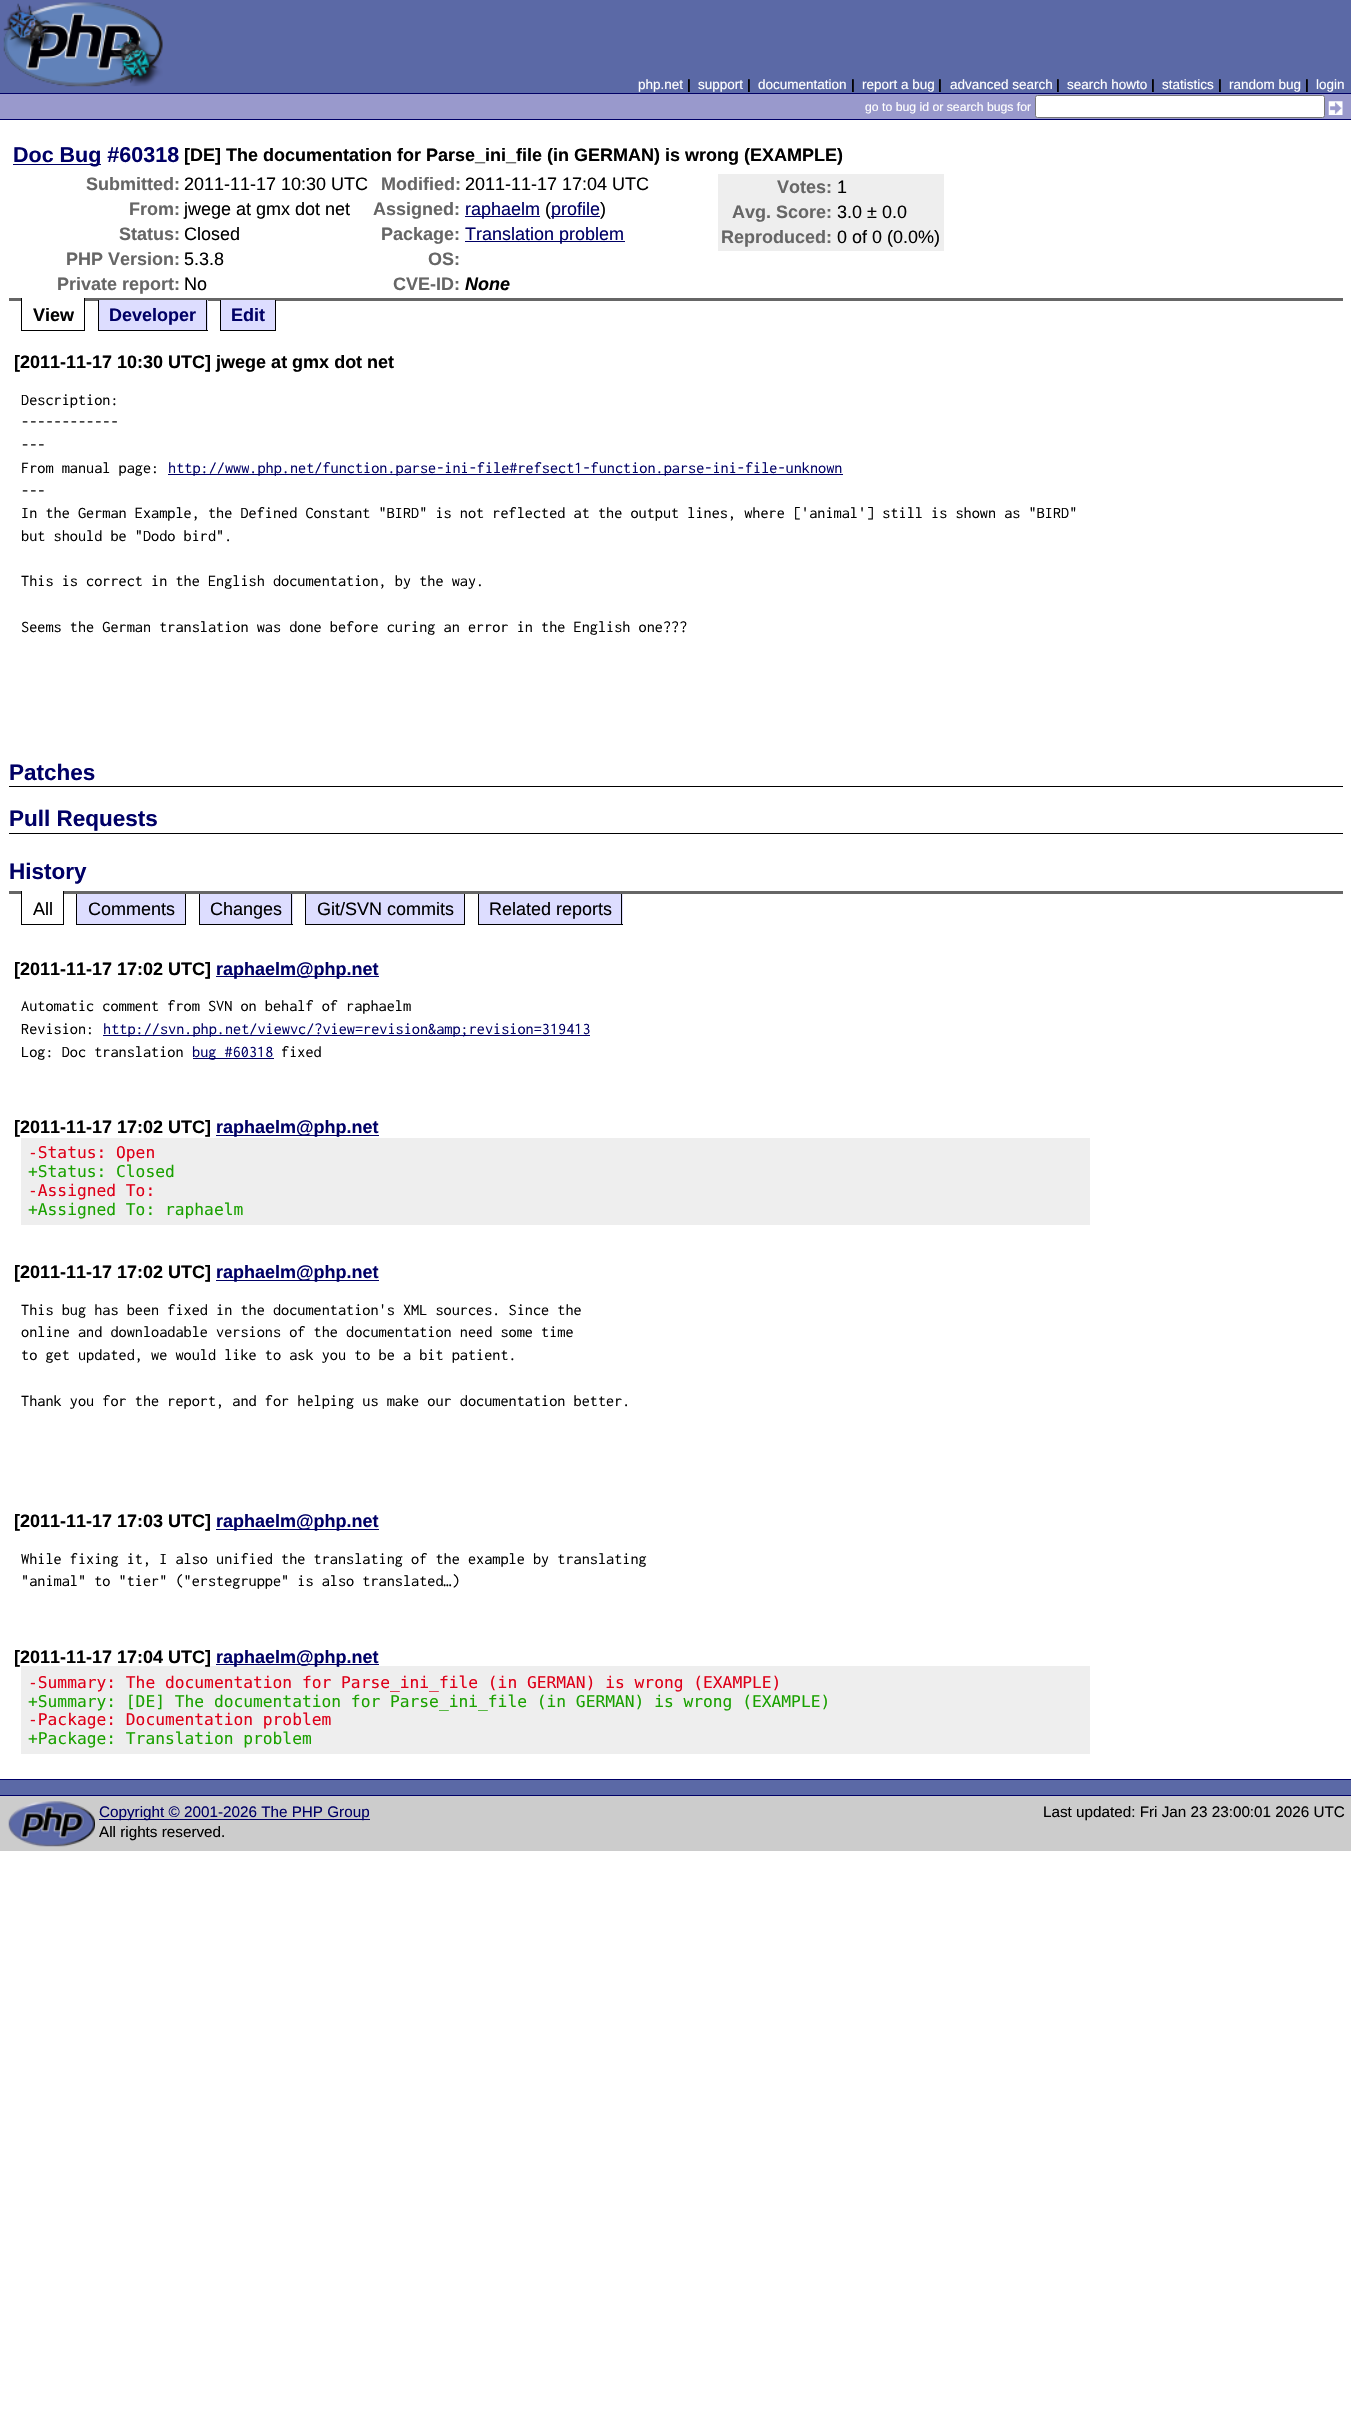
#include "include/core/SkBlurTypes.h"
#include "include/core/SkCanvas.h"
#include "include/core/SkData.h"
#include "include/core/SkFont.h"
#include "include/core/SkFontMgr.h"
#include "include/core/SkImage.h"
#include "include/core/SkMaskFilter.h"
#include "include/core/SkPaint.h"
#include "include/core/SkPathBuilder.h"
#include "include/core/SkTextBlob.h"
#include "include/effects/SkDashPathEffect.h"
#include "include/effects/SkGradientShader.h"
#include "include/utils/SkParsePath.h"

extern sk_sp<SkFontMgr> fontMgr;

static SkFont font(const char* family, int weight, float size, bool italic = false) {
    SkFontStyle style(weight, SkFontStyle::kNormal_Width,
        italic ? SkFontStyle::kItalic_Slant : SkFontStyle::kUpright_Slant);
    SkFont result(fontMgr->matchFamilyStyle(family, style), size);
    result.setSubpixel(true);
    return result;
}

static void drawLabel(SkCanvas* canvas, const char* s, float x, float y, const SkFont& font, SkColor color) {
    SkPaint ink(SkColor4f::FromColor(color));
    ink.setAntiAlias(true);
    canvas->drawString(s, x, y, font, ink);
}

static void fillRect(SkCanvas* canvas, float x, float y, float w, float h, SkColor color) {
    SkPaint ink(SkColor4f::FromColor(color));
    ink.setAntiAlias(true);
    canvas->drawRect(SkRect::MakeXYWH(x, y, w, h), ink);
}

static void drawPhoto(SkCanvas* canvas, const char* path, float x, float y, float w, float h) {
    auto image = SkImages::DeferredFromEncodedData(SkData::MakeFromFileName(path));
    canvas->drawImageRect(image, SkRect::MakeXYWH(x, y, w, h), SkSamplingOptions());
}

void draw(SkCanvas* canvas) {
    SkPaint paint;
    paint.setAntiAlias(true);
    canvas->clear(0xFFFFFFFF);
    fillRect(canvas, 0, 0, 1351, 93, 0xFF5B69A6);
    drawPhoto(canvas, "assets/img1.png", 3, 2, 160, 85);
    SkFont font1 = font("Liberation Sans", 400, 13.5f);
    drawLabel(canvas, "php.net", 638, 89, font1, 0xFFFFFFFF);
    SkFont font2 = font("Liberation Sans", 700, 13.5f);
    drawLabel(canvas, "|", 687, 89, font2, 0xFF000000);
    drawLabel(canvas, "support", 698, 89, font1, 0xFFFFFFFF);
    drawLabel(canvas, "|", 747, 89, font2, 0xFF000000);
    drawLabel(canvas, "documentation", 758, 89, font1, 0xFFFFFFFF);
    drawLabel(canvas, "|", 851, 89, font2, 0xFF000000);
    drawLabel(canvas, "report a bug", 862, 89, font1, 0xFFFFFFFF);
    drawLabel(canvas, "|", 938, 89, font2, 0xFF000000);
    drawLabel(canvas, "advanced search", 950, 89, font1, 0xFFFFFFFF);
    drawLabel(canvas, "|", 1056, 89, font2, 0xFF000000);
    drawLabel(canvas, "search howto", 1067, 89, font1, 0xFFFFFFFF);
    drawLabel(canvas, "|", 1151, 89, font2, 0xFF000000);
    drawLabel(canvas, "statistics", 1162, 89, font1, 0xFFFFFFFF);
    drawLabel(canvas, "|", 1218, 89, font2, 0xFF000000);
    drawLabel(canvas, "random bug", 1229, 89, font1, 0xFFFFFFFF);
    drawLabel(canvas, "|", 1305, 89, font2, 0xFF000000);
    drawLabel(canvas, "login", 1316, 89, font1, 0xFFFFFFFF);
    fillRect(canvas, 0, 94, 1351, 25, 0xFF9999CC);
    fillRect(canvas, 0, 93, 1351, 1, 0xFF000066);
    fillRect(canvas, 0, 119, 1351, 1, 0xFF000066);
    SkFont font3 = font("Liberation Sans", 400, 12.25f);
    drawLabel(canvas, "go to bug id or search bugs for", 865, 111, font3, 0xFFFFFFFF);
    paint.setColor(0xFFFFFFFF);
    canvas->drawRoundRect(SkRect::MakeXYWH(1035.5f, 95.5f, 289, 22), 2, 2, paint);
    paint.setStroke(true);
    paint.setStrokeWidth(1);
    paint.setColor(0xFF767676);
    canvas->drawRoundRect(SkRect::MakeXYWH(1035.5f, 95.5f, 289, 22), 2, 2, paint);
    drawPhoto(canvas, "assets/img2.png", 1328, 101, 15, 14);
    fillRect(canvas, 9, 298, 1334, 3, 0xFF666666);
    fillRect(canvas, 13, 164, 88, 1, 0xFF000066);
    SkFont font4 = font("Liberation Sans", 700, 21.5f);
    drawLabel(canvas, "Doc Bug #60318", 13, 162, font4, 0xFF000066);
    SkFont font5 = font("Liberation Sans", 700, 18);
    drawLabel(canvas, "[DE] The documentation for Parse_ini_file (in GERMAN) is wrong (EXAMPLE)", 184, 161, font5, 0xFF000000);
    drawLabel(canvas, "Submitted:", 86, 190, font5, 0xFF666666);
    SkFont font6 = font("Liberation Sans", 400, 18);
    drawLabel(canvas, "2011-11-17 10:30 UTC", 184, 190, font6, 0xFF000000);
    drawLabel(canvas, "Modified:", 381, 190, font5, 0xFF666666);
    drawLabel(canvas, "2011-11-17 17:04 UTC", 465, 190, font6, 0xFF000000);
    fillRect(canvas, 718, 174, 226, 77, 0xFFEEEEEE);
    drawLabel(canvas, "Votes:", 777, 193, font5, 0xFF666666);
    drawLabel(canvas, "1", 837, 193, font6, 0xFF000000);
    drawLabel(canvas, "Avg. Score:", 732, 218, font5, 0xFF666666);
    drawLabel(canvas, "3.0 ± 0.0", 837, 218, font6, 0xFF000000);
    drawLabel(canvas, "Reproduced:", 721, 243, font5, 0xFF666666);
    drawLabel(canvas, "0 of 0 (0.0%)", 837, 243, font6, 0xFF000000);
    drawLabel(canvas, "From:", 129, 215, font5, 0xFF666666);
    drawLabel(canvas, "jwege at gmx dot net", 184, 215, font6, 0xFF000000);
    drawLabel(canvas, "Assigned:", 373, 215, font5, 0xFF666666);
    fillRect(canvas, 465, 216, 75, 1, 0xFF000066);
    drawLabel(canvas, "raphaelm", 465, 215, font6, 0xFF000066);
    drawLabel(canvas, "(", 545, 215, font6, 0xFF000000);
    fillRect(canvas, 551, 216, 49, 1, 0xFF000066);
    drawLabel(canvas, "profile", 551, 215, font6, 0xFF000066);
    drawLabel(canvas, ")", 600, 215, font6, 0xFF000000);
    drawLabel(canvas, "Status:", 119, 240, font5, 0xFF666666);
    drawLabel(canvas, "Closed", 184, 240, font6, 0xFF000000);
    drawLabel(canvas, "Package:", 381, 240, font5, 0xFF666666);
    fillRect(canvas, 465, 241, 160, 1, 0xFF000066);
    drawLabel(canvas, "Translation problem", 465, 240, font6, 0xFF000066);
    drawLabel(canvas, "PHP Version:", 66, 265, font5, 0xFF666666);
    drawLabel(canvas, "5.3.8", 184, 265, font6, 0xFF000000);
    drawLabel(canvas, "OS:", 428, 265, font5, 0xFF666666);
    drawLabel(canvas, "Private report:", 57, 290, font5, 0xFF666666);
    drawLabel(canvas, "No", 184, 290, font6, 0xFF000000);
    drawLabel(canvas, "CVE-ID:", 393, 290, font5, 0xFF666666);
    SkFont font7 = font("Liberation Sans", 700, 18, true);
    drawLabel(canvas, "None", 465, 290, font7, 0xFF000000);
    fillRect(canvas, 22, 298, 62, 3, 0xFFFFFFFF);
    fillRect(canvas, 84, 298, 1, 33, 0xFF000000);
    fillRect(canvas, 21, 330, 64, 1, 0xFF000000);
    fillRect(canvas, 21, 298, 1, 33, 0xFF000000);
    drawLabel(canvas, "View", 33, 321, font5, 0xFF000000);
    fillRect(canvas, 99, 300, 109, 30, 0xFFDDDDFF);
    fillRect(canvas, 206, 300, 1, 31, 0xFF000000);
    fillRect(canvas, 98, 330, 110, 1, 0xFF000000);
    fillRect(canvas, 98, 300, 1, 31, 0xFF000000);
    drawLabel(canvas, "Developer", 109, 321, font5, 0xFF000066);
    fillRect(canvas, 221, 300, 54, 30, 0xFFDDDDFF);
    fillRect(canvas, 275, 300, 1, 31, 0xFF000000);
    fillRect(canvas, 220, 330, 56, 1, 0xFF000000);
    fillRect(canvas, 220, 300, 1, 31, 0xFF000000);
    drawLabel(canvas, "Edit", 231, 321, font5, 0xFF000066);
    drawLabel(canvas, "[2011-11-17 10:30 UTC] jwege at gmx dot net", 14, 368, font5, 0xFF000000);
    SkFont font8 = font("Inconsolata", 400, 16.25f);
    drawLabel(canvas, "Description:", 21, 405, font8, 0xFF000000);
    drawLabel(canvas, "------------", 21, 427, font8, 0xFF000000);
    drawLabel(canvas, "---", 21, 450, font8, 0xFF000000);
    drawLabel(canvas, "From manual page:", 21, 473, font8, 0xFF000000);
    fillRect(canvas, 168, 474, 675, 1, 0xFF000066);
    drawLabel(canvas, "http://www.php.net/function.parse-ini-file#refsect1-function.parse-ini-file-unknown", 168, 473, font8, 0xFF000066);
    drawLabel(canvas, "---", 21, 496, font8, 0xFF000000);
    drawLabel(canvas, "In the German Example, the Defined Constant \"BIRD\" is not reflected at the output lines, where ['animal'] still is shown as \"BIRD\"", 21, 518, font8, 0xFF000000);
    drawLabel(canvas, "but should be \"Dodo bird\".", 21, 541, font8, 0xFF000000);
    drawLabel(canvas, "This is correct in the English documentation, by the way.", 21, 586, font8, 0xFF000000);
    drawLabel(canvas, "Seems the German translation was done before curing an error in the English one?\077?", 21, 632, font8, 0xFF000000);
    fillRect(canvas, 9, 786, 1334, 1, 0xFF000000);
    SkFont font9 = font("Liberation Sans", 700, 22.5f);
    drawLabel(canvas, "Patches", 9, 780, font9, 0xFF000066);
    fillRect(canvas, 9, 833, 1334, 1, 0xFF000000);
    drawLabel(canvas, "Pull Requests", 9, 826, font9, 0xFF000066);
    fillRect(canvas, 9, 891, 1334, 3, 0xFF666666);
    drawLabel(canvas, "History", 9, 879, font9, 0xFF000066);
    fillRect(canvas, 22, 891, 41, 3, 0xFFFFFFFF);
    fillRect(canvas, 63, 891, 1, 34, 0xFF000000);
    fillRect(canvas, 21, 924, 43, 1, 0xFF000000);
    fillRect(canvas, 21, 891, 1, 34, 0xFF000000);
    drawLabel(canvas, "All", 33, 915, font6, 0xFF000000);
    fillRect(canvas, 77, 894, 108, 30, 0xFFDDDDFF);
    fillRect(canvas, 185, 894, 1, 31, 0xFF000000);
    fillRect(canvas, 76, 924, 110, 1, 0xFF000000);
    fillRect(canvas, 76, 894, 1, 31, 0xFF000000);
    drawLabel(canvas, "Comments", 88, 915, font6, 0xFF000000);
    fillRect(canvas, 200, 894, 93, 30, 0xFFDDDDFF);
    fillRect(canvas, 291, 894, 1, 31, 0xFF000000);
    fillRect(canvas, 199, 924, 94, 1, 0xFF000000);
    fillRect(canvas, 199, 894, 1, 31, 0xFF000000);
    drawLabel(canvas, "Changes", 210, 915, font6, 0xFF000000);
    fillRect(canvas, 306, 894, 158, 30, 0xFFDDDDFF);
    fillRect(canvas, 464, 894, 1, 31, 0xFF000000);
    fillRect(canvas, 305, 924, 160, 1, 0xFF000000);
    fillRect(canvas, 305, 894, 1, 31, 0xFF000000);
    drawLabel(canvas, "Git/SVN commits", 317, 915, font6, 0xFF000000);
    fillRect(canvas, 479, 894, 144, 30, 0xFFDDDDFF);
    fillRect(canvas, 621, 894, 1, 31, 0xFF000000);
    fillRect(canvas, 478, 924, 145, 1, 0xFF000000);
    fillRect(canvas, 478, 894, 1, 31, 0xFF000000);
    drawLabel(canvas, "Related reports", 489, 915, font6, 0xFF000000);
    drawLabel(canvas, "[2011-11-17 17:02 UTC]", 14, 975, font5, 0xFF000000);
    fillRect(canvas, 216, 976, 163, 1, 0xFF000066);
    drawLabel(canvas, "raphaelm@php.net", 216, 975, font5, 0xFF000066);
    drawLabel(canvas, "Automatic comment from SVN on behalf of raphaelm", 21, 1011, font8, 0xFF000000);
    drawLabel(canvas, "Revision:", 21, 1034, font8, 0xFF000000);
    fillRect(canvas, 103, 1035, 487, 1, 0xFF000066);
    drawLabel(canvas, "http://svn.php.net/viewvc/?view=revision&amp;revision=319413", 103, 1034, font8, 0xFF000066);
    drawLabel(canvas, "Log: Doc translation", 21, 1057, font8, 0xFF000000);
    fillRect(canvas, 193, 1058, 81, 1, 0xFF000066);
    drawLabel(canvas, "bug #60318", 192, 1057, font8, 0xFF000066);
    drawLabel(canvas, "fixed", 281, 1057, font8, 0xFF000000);
    drawLabel(canvas, "[2011-11-17 17:02 UTC]", 14, 1133, font5, 0xFF000000);
    fillRect(canvas, 216, 1135, 163, 1, 0xFF000066);
    drawLabel(canvas, "raphaelm@php.net", 216, 1133, font5, 0xFF000066);
    fillRect(canvas, 21, 1138, 1069, 87, 0xFFEEEEEE);
    SkFont font10 = font("DejaVu Sans Mono", 400, 16.25f);
    drawLabel(canvas, "-Status: Open", 28, 1158, font10, 0xFFDE0019);
    drawLabel(canvas, "+Status: Closed", 28, 1177, font10, 0xFF1AA100);
    drawLabel(canvas, "-Assigned To:", 28, 1196, font10, 0xFFDE0019);
    drawLabel(canvas, "+Assigned To: raphaelm", 28, 1215, font10, 0xFF1AA100);
    drawLabel(canvas, "[2011-11-17 17:02 UTC]", 14, 1278, font5, 0xFF000000);
    fillRect(canvas, 216, 1280, 163, 1, 0xFF000066);
    drawLabel(canvas, "raphaelm@php.net", 216, 1278, font5, 0xFF000066);
    drawLabel(canvas, "This bug has been fixed in the documentation's XML sources. Since the", 21, 1315, font8, 0xFF000000);
    drawLabel(canvas, "online and downloadable versions of the documentation need some time", 21, 1337, font8, 0xFF000000);
    drawLabel(canvas, "to get updated, we would like to ask you to be a bit patient.", 21, 1360, font8, 0xFF000000);
    drawLabel(canvas, "Thank you for the report, and for helping us make our documentation better.", 21, 1406, font8, 0xFF000000);
    drawLabel(canvas, "[2011-11-17 17:03 UTC]", 14, 1527, font5, 0xFF000000);
    fillRect(canvas, 216, 1529, 163, 1, 0xFF000066);
    drawLabel(canvas, "raphaelm@php.net", 216, 1527, font5, 0xFF000066);
    drawLabel(canvas, "While fixing it, I also unified the translating of the example by translating", 21, 1564, font8, 0xFF000000);
    drawLabel(canvas, "\"animal\" to \"tier\" (\"erstegruppe\" is also translated…)", 21, 1586, font8, 0xFF000000);
    fillRect(canvas, 21, 1666, 1069, 88, 0xFFEEEEEE);
    drawLabel(canvas, "[2011-11-17 17:04 UTC]", 14, 1663, font5, 0xFF000000);
    fillRect(canvas, 216, 1664, 163, 1, 0xFF000066);
    drawLabel(canvas, "raphaelm@php.net", 216, 1663, font5, 0xFF000066);
    drawLabel(canvas, "-Summary: The documentation for Parse_ini_file (in GERMAN) is wrong (EXAMPLE)", 28, 1688, font10, 0xFFDE0019);
    drawLabel(canvas, "+Summary: [DE] The documentation for Parse_ini_file (in GERMAN) is wrong (EXAMPLE)", 28, 1707, font10, 0xFF1AA100);
    drawLabel(canvas, "-Package: Documentation problem", 28, 1725, font10, 0xFFDE0019);
    drawLabel(canvas, "+Package: Translation problem", 28, 1744, font10, 0xFF1AA100);
    fillRect(canvas, 0, 1780, 1351, 15, 0xFF5B69A6);
    fillRect(canvas, 0, 1779, 1351, 1, 0xFF000066);
    fillRect(canvas, 0, 1795, 1351, 1, 0xFF000066);
    fillRect(canvas, 0, 1796, 1351, 55, 0xFFCCCCCC);
    drawPhoto(canvas, "assets/img3.png", 8, 1801, 87, 46);
    fillRect(canvas, 99, 1819, 271, 1, 0xFF000066);
    SkFont font11 = font("Liberation Sans", 400, 15.25f);
    drawLabel(canvas, "Copyright © 2001-2026 The PHP Group", 99, 1817, font11, 0xFF000066);
    drawLabel(canvas, "All rights reserved.", 99, 1837, font11, 0xFF000000);
    drawLabel(canvas, "Last updated: Fri Jan 23 23:00:01 2026 UTC", 1043, 1817, font11, 0xFF000000);
}
